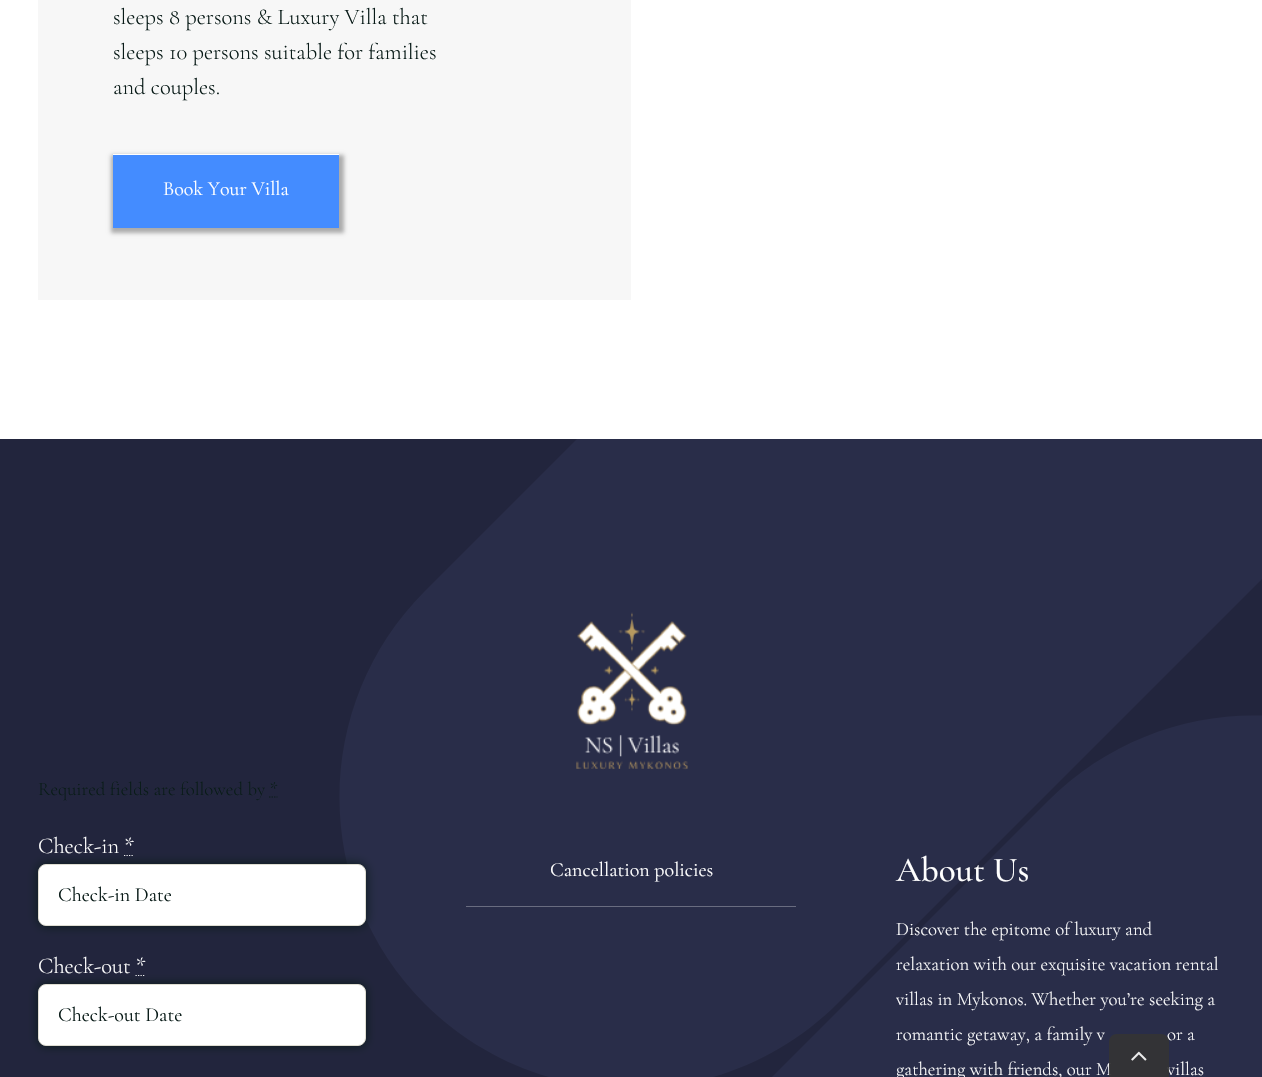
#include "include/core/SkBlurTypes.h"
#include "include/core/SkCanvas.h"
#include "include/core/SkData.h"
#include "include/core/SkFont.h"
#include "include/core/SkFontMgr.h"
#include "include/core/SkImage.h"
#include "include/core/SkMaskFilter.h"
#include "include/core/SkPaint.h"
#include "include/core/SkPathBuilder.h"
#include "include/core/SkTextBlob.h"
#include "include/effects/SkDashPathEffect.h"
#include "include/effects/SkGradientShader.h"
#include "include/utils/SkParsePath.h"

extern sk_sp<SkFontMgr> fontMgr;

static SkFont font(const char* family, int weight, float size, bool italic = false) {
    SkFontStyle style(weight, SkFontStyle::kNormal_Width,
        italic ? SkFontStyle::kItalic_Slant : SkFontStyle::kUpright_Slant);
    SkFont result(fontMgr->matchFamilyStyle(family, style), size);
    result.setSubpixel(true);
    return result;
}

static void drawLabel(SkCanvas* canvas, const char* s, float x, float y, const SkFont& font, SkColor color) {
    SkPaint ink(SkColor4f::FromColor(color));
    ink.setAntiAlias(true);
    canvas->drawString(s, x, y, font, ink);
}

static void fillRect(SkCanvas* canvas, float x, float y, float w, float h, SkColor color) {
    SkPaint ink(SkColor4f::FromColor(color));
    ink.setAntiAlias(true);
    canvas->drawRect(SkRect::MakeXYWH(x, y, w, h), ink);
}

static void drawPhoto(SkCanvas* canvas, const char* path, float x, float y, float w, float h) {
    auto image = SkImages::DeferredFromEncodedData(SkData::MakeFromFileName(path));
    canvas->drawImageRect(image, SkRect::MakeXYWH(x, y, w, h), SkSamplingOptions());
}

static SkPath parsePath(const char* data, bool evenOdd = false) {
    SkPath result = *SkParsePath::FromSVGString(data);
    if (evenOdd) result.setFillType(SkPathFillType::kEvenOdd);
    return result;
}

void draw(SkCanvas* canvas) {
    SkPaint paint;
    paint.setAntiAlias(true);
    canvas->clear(0xFFFFFFFF);
    fillRect(canvas, 38, 0, 593, 300, 0xFFF7F7F7);
    SkFont font1 = font("Cormorant Garamond", 300, 22.5f);
    drawLabel(canvas, "sleeps 8 persons & Luxury Villa that", 113, 24, font1, 0xFF091B18);
    drawLabel(canvas, "sleeps 10 persons suitable for families", 113, 59, font1, 0xFF091B18);
    drawLabel(canvas, "and couples.", 113, 94, font1, 0xFF091B18);
    paint.setColor(0x4D000000);
    paint.setMaskFilter(SkMaskFilter::MakeBlur(kNormal_SkBlurStyle, 2));
    canvas->drawRect(SkRect::MakeXYWH(111, 155, 233, 78), paint);
    paint.setMaskFilter(nullptr);
    paint.setColor(0xFF448CFF);
    canvas->drawPath(parsePath("M113 225V228H339V156V225Z"), paint);
    fillRect(canvas, 113, 155, 226, 70, 0xFF448CFF);
    fillRect(canvas, 113, 154, 226, 1, 0xFFFFFFFF);
    SkFont font2 = font("Cormorant Garamond", 400, 20);
    drawLabel(canvas, "Book Your Villa", 163, 195, font2, 0xFFFFFFFF);
    fillRect(canvas, 0, 439, 1262, 638, 0xFF22253D);
    paint.setColor(0xFF292D49);
    canvas->drawPath(parsePath("M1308 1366H483L1048 801C1162 687 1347 687 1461 801C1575 915 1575 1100 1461 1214ZM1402 439L838 1003C724 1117 539 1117 425 1004C311 890 311 705 425 591L577 439Z", true), paint);
    drawPhoto(canvas, "assets/img1.png", 576, 612, 112, 158);
    SkFont font3 = font("Cormorant Garamond", 300, 18.75f);
    drawLabel(canvas, "Required fields are followed by *", 38, 795, font3, 0xFF091B18);
    paint.setStroke(true);
    paint.setStrokeWidth(1.2f);
    paint.setColor(0xFF091B18);
    canvas->drawPath(parsePath("M269 797H270.5M271.5 797H273M274 797H275.5M276.5 797H277.5"), paint);
    drawLabel(canvas, "Check-in *", 38, 853, font1, 0xFFFFFFFF);
    paint.setColor(0xFFFFFFFF);
    paint.setPathEffect(SkDashPathEffect::Make({{1.25f, 1.25f}}, 0));
    canvas->drawPath(parsePath("M124 855.5H134"), paint);
    paint.setPathEffect(nullptr);
    paint.setStroke(false);
    paint.setColor(0xFF091B18);
    paint.setMaskFilter(SkMaskFilter::MakeBlur(kNormal_SkBlurStyle, 6));
    canvas->drawRoundRect(SkRect::MakeXYWH(38, 864, 328, 62), 8, 8, paint);
    paint.setMaskFilter(nullptr);
    paint.setColor(0xFFFFFFFF);
    canvas->drawRoundRect(SkRect::MakeXYWH(38.5f, 864.5f, 327, 61), 7.5f, 7.5f, paint);
    paint.setStroke(true);
    paint.setStrokeWidth(1);
    paint.setColor(0xFFDFDDD2);
    canvas->drawRoundRect(SkRect::MakeXYWH(38.5f, 864.5f, 327, 61), 7.5f, 7.5f, paint);
    drawLabel(canvas, "Check-in Date", 58, 901, font2, 0xFF091B18);
    drawLabel(canvas, "Check-out *", 38, 973, font1, 0xFFFFFFFF);
    paint.setStrokeWidth(1.2f);
    paint.setColor(0xFFFCFCFC);
    paint.setPathEffect(SkDashPathEffect::Make({{1.25f, 1.25f}}, 0));
    canvas->drawPath(parsePath("M135.5 975.5H145.5"), paint);
    paint.setPathEffect(nullptr);
    paint.setStroke(false);
    paint.setColor(0xFF091B18);
    paint.setMaskFilter(SkMaskFilter::MakeBlur(kNormal_SkBlurStyle, 5.5f));
    canvas->drawRoundRect(SkRect::MakeXYWH(38, 984, 328, 62), 8, 8, paint);
    paint.setMaskFilter(nullptr);
    paint.setColor(0xFFFFFFFF);
    canvas->drawRoundRect(SkRect::MakeXYWH(38.5f, 984.5f, 327, 61), 7.5f, 7.5f, paint);
    paint.setStroke(true);
    paint.setStrokeWidth(1);
    paint.setColor(0xFFDFDDD2);
    canvas->drawRoundRect(SkRect::MakeXYWH(38.5f, 984.5f, 327, 61), 7.5f, 7.5f, paint);
    drawLabel(canvas, "Check-out Date", 58, 1021, font2, 0xFF091B18);
    drawLabel(canvas, "Cancellation policies", 550, 876, font2, 0xFFFFFFFF);
    fillRect(canvas, 466, 906, 330, 1, 0xFF696C80);
    SkFont font4 = font("Cormorant Garamond", 500, 35);
    drawLabel(canvas, "About Us", 896, 881, font4, 0xFFFFFFFF);
    drawLabel(canvas, "Discover the epitome of luxury and", 896, 935, font3, 0xFFFFFFFF);
    drawLabel(canvas, "relaxation with our exquisite vacation rental", 896, 970, font3, 0xFFFFFFFF);
    drawLabel(canvas, "villas in Mykonos. Whether you’re seeking a", 896, 1005, font3, 0xFFFFFFFF);
    drawLabel(canvas, "romantic getaway, a family v", 896, 1040, font3, 0xFFFFFFFF);
    drawLabel(canvas, "or a", 1167, 1040, font3, 0xFFFFFFFF);
    drawLabel(canvas, "gathering with friends, our M", 896, 1075, font3, 0xFFFFFFFF);
    drawLabel(canvas, "villas", 1167, 1075, font3, 0xFFFFFFFF);
    paint.setStroke(false);
    paint.setColor(0xE6333333);
    canvas->drawPath(parsePath("M1117 1034H1161C1165.5 1034 1169 1037.5 1169 1042V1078H1109V1042C1109 1037.5 1112.5 1034 1117 1034Z"), paint);
    drawPhoto(canvas, "assets/img2.png", 1131, 1051, 16, 10);
}
